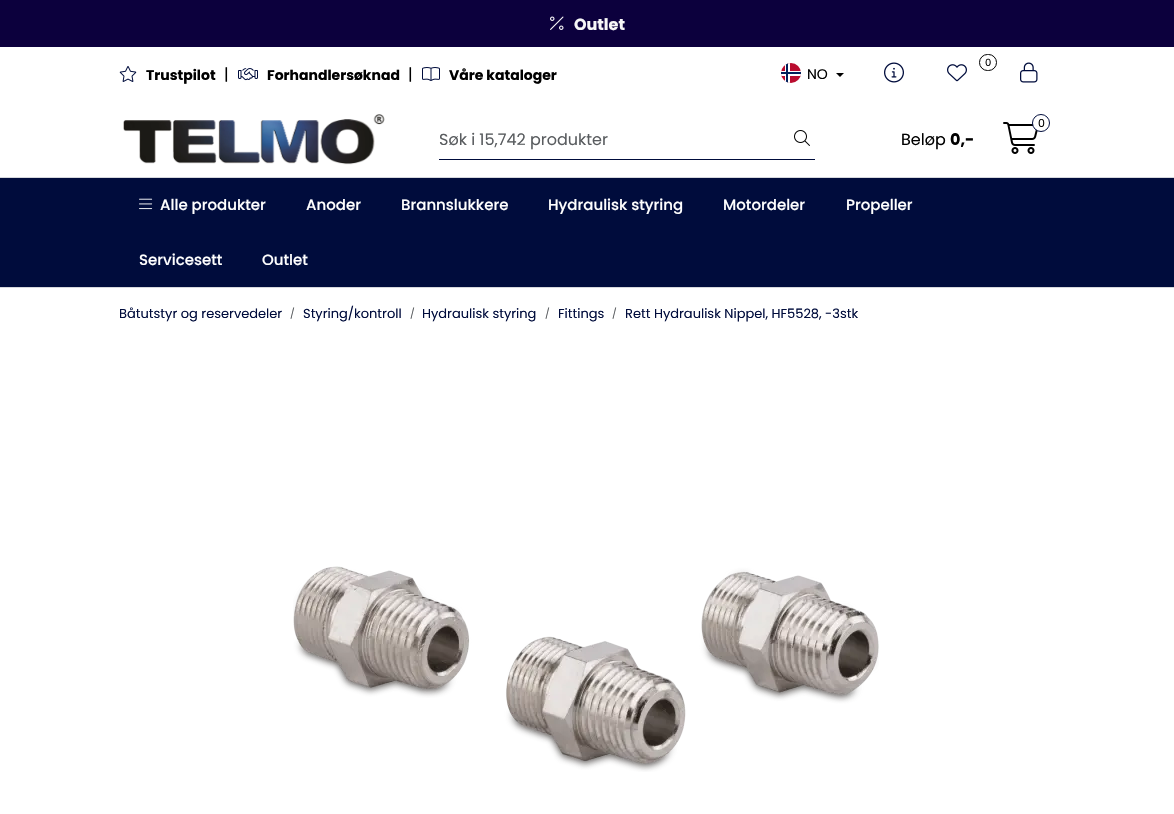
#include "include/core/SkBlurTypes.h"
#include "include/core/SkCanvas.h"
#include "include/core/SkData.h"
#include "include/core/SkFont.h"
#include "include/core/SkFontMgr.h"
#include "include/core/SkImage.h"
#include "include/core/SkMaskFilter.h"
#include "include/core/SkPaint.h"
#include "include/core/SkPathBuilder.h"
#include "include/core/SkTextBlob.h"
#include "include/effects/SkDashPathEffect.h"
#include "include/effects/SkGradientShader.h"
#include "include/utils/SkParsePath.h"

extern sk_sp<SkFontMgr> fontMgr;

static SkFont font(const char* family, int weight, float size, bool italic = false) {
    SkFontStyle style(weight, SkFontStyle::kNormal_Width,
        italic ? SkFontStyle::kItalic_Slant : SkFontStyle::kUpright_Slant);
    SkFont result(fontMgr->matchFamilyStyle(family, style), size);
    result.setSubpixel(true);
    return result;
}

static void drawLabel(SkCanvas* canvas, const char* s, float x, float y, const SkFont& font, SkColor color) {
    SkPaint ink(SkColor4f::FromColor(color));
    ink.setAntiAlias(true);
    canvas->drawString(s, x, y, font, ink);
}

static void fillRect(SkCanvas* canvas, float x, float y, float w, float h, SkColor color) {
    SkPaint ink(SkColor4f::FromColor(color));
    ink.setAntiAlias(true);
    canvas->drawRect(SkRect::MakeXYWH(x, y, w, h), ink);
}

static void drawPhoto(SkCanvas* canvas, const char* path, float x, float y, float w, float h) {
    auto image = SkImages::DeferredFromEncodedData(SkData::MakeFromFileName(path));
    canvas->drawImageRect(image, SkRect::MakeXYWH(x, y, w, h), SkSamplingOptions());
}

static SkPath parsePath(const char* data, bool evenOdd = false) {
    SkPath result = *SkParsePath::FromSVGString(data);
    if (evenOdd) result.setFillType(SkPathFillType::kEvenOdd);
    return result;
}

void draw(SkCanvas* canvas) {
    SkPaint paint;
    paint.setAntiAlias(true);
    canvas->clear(0xFF0C003D);
    drawPhoto(canvas, "assets/img1.png", 550, 16, 14, 14);
    SkFont font1 = font("Poppins", 700, 16);
    drawLabel(canvas, "Outlet", 574, 30, font1, 0xFFF7F7F7);
    fillRect(canvas, 0, 47, 1174, 130, 0xFFFFFFFF);
    drawPhoto(canvas, "assets/img2.png", 119, 66, 18, 16);
    SkFont font2 = font("Poppins", 700, 14);
    drawLabel(canvas, "Trustpilot", 146, 80, font2, 0xFF000000);
    SkFont font3 = font("Poppins", 400, 16);
    drawLabel(canvas, "|", 224, 80, font3, 0xFF000000);
    drawPhoto(canvas, "assets/img3.png", 238, 68, 20, 13);
    drawLabel(canvas, "Forhandlersøknad", 267, 80, font2, 0xFF000000);
    drawLabel(canvas, "|", 408, 80, font3, 0xFF000000);
    drawPhoto(canvas, "assets/img4.png", 422, 67, 18, 14);
    drawLabel(canvas, "Våre kataloger", 449, 80, font2, 0xFF000000);
    paint.setColor(0xFFBA0C2F);
    canvas->drawCircle(791, 73, 10, paint);
    canvas->save();
    canvas->clipPath(parsePath("M791 63C796.5 63 801 67.5 801 73C801 78.5 796.5 83 791 83C785.5 83 781 78.5 781 73C781 67.5 785.5 63 791 63Z"), true);
    fillRect(canvas, 785, 63, 5, 20, 0xFFFFFFFF);
    fillRect(canvas, 781, 71, 20, 5, 0xFFFFFFFF);
    fillRect(canvas, 786, 63, 2, 20, 0xFF00205B);
    canvas->restore();
    fillRect(canvas, 781, 72, 20, 2, 0xFF00205B);
    SkFont font4 = font("Poppins", 400, 14);
    drawLabel(canvas, "NO", 807, 79, font4, 0xFF000000);
    paint.setColor(0xFF000000);
    canvas->drawPath(parsePath("M836 73H844L840 77Z"), paint);
    drawPhoto(canvas, "assets/img5.png", 884, 62, 20, 21);
    paint.setStroke(true);
    paint.setStrokeWidth(1);
    canvas->drawRoundRect(SkRect::MakeXYWH(979.5f, 54.5f, 17, 16), 8, 8, paint);
    SkFont font5 = font("Poppins", 400, 10);
    drawLabel(canvas, "0", 985, 66, font5, 0xFF000000);
    drawPhoto(canvas, "assets/img6.png", 947, 64, 20, 18);
    drawPhoto(canvas, "assets/img7.png", 1020, 62, 18, 21);
    drawPhoto(canvas, "assets/img8.png", 123, 114, 262, 51);
    fillRect(canvas, 439, 159, 376, 1, 0xFF000C3C);
    drawLabel(canvas, "Søk i 15,742 produkter", 439, 145, font3, 0xFF595C5F);
    drawPhoto(canvas, "assets/img9.png", 794, 130, 16, 16);
    drawPhoto(canvas, "assets/img10.png", 1003, 122, 35, 32);
    paint.setStroke(false);
    paint.setColor(0xFFFFFFFF);
    canvas->drawCircle(1041, 123, 8.5f, paint);
    paint.setStroke(true);
    paint.setColor(0xFF000C3C);
    canvas->drawCircle(1041, 123, 8.5f, paint);
    SkFont font6 = font("Poppins", 400, 11);
    drawLabel(canvas, "0", 1038, 127, font6, 0xFF000000);
    drawLabel(canvas, "Beløp", 901, 145, font3, 0xFF000000);
    drawLabel(canvas, "0,-", 950, 145, font1, 0xFF000000);
    fillRect(canvas, 0, 178, 1174, 109, 0xFF000C3C);
    fillRect(canvas, 0, 177, 1174, 1, 0xFFD6D8DD);
    fillRect(canvas, 0, 287, 1174, 1, 0xFFD6D8DD);
    drawPhoto(canvas, "assets/img11.png", 139, 198, 14, 12);
    SkFont font7 = font("Poppins", 500, 15);
    drawLabel(canvas, "Alle produkter", 160, 210, font7, 0xFFFFFFFF);
    drawLabel(canvas, "Anoder", 306, 210, font7, 0xFFFFFFFF);
    drawLabel(canvas, "Brannslukkere", 401, 210, font7, 0xFFFFFFFF);
    drawLabel(canvas, "Hydraulisk styring", 548, 210, font7, 0xFFFFFFFF);
    drawLabel(canvas, "Motordeler", 723, 210, font7, 0xFFFFFFFF);
    drawLabel(canvas, "Propeller", 846, 210, font7, 0xFFFFFFFF);
    drawLabel(canvas, "Servicesett", 139, 265, font7, 0xFFFFFFFF);
    drawLabel(canvas, "Outlet", 262, 265, font7, 0xFFFFFFFF);
    fillRect(canvas, 0, 288, 1174, 526, 0xFFFFFFFF);
    SkFont font8 = font("Poppins", 400, 13);
    drawLabel(canvas, "Båtutstyr og reservedeler", 119, 318, font8, 0xFF000C3C);
    drawLabel(canvas, "/", 290, 317, font5, 0xFF595C5F);
    drawLabel(canvas, "Styring/kontroll", 303, 318, font8, 0xFF000C3C);
    drawLabel(canvas, "/", 410, 317, font5, 0xFF595C5F);
    drawLabel(canvas, "Hydraulisk styring", 422, 318, font8, 0xFF000C3C);
    drawLabel(canvas, "/", 545, 317, font5, 0xFF595C5F);
    drawLabel(canvas, "Fittings", 558, 318, font8, 0xFF000C3C);
    drawLabel(canvas, "/", 612, 317, font5, 0xFF595C5F);
    drawLabel(canvas, "Rett Hydraulisk Nippel, HF5528, -3stk", 625, 318, font8, 0xFF000C3C);
    drawPhoto(canvas, "assets/img12.png", 293, 566, 586, 206);
}
